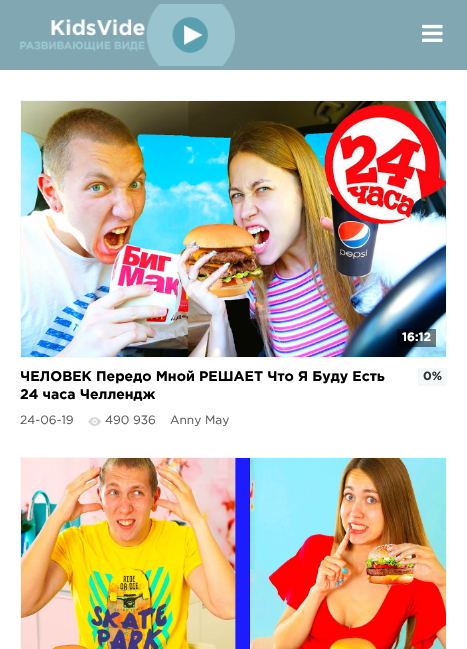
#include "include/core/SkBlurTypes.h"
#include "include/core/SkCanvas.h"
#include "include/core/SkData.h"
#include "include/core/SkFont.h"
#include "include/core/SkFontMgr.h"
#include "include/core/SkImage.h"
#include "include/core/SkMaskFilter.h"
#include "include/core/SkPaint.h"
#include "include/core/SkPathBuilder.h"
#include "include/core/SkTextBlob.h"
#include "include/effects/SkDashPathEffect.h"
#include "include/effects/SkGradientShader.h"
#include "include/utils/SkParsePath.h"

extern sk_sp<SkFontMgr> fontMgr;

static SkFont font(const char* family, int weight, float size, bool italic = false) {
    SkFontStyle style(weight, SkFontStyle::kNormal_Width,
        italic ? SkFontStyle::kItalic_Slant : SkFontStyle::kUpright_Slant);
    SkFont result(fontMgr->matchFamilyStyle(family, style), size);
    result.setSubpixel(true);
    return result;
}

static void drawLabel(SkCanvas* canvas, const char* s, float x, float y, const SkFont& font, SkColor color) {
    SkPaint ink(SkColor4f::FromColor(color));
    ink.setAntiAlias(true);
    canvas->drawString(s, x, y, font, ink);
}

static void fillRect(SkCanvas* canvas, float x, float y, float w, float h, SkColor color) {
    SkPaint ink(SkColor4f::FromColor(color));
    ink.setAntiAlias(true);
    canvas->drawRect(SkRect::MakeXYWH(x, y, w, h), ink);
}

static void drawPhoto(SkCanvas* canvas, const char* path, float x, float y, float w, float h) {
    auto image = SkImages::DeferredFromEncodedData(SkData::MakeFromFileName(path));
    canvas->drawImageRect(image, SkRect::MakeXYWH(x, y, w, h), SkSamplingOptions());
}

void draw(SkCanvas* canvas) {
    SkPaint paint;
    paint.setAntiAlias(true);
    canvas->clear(0xFFFFFFFF);
    fillRect(canvas, 0, 0, 467, 70, 0xFF81A7B2);
    drawPhoto(canvas, "assets/img1.png", 20, 4, 215, 62);
    drawPhoto(canvas, "assets/img2.png", 422, 24, 21, 18);
    paint.setStroke(true);
    paint.setStrokeWidth(1);
    paint.setColor(0xFFF6F8F5);
    canvas->drawRect(SkRect::MakeXYWH(20.5f, 100.5f, 426, 257), paint);
    drawPhoto(canvas, "assets/img3.png", 21, 101, 425, 256);
    fillRect(canvas, 397, 329, 39, 18, 0x80000000);
    SkFont font1 = font("Gotham", 700, 12);
    drawLabel(canvas, "16:12", 402, 341, font1, 0xFFFFFFFF);
    SkFont font2 = font("Gotham", 700, 14);
    drawLabel(canvas, "ЧЕЛОВЕК Передо Мной РЕШАЕТ Что Я Буду Есть", 20, 381, font2, 0xFF000000);
    drawLabel(canvas, "24 часа Челлендж", 20, 399, font2, 0xFF000000);
    fillRect(canvas, 418, 368, 29, 18, 0xFFF3F7F8);
    drawLabel(canvas, "0%", 423, 380, font1, 0xFF333333);
    SkFont font3 = font("Gotham", 400, 12);
    drawLabel(canvas, "24-06-19", 20, 424, font3, 0xFF5C5C5C);
    drawPhoto(canvas, "assets/img4.png", 88, 417, 14, 9);
    drawLabel(canvas, "490 936", 105, 424, font3, 0xFF5C5C5C);
    drawLabel(canvas, "Anny May", 170, 424, font3, 0xFF5C5C5C);
    canvas->drawRect(SkRect::MakeXYWH(20.5f, 457.5f, 426, 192), paint);
    drawPhoto(canvas, "assets/img5.png", 21, 458, 425, 191);
}
